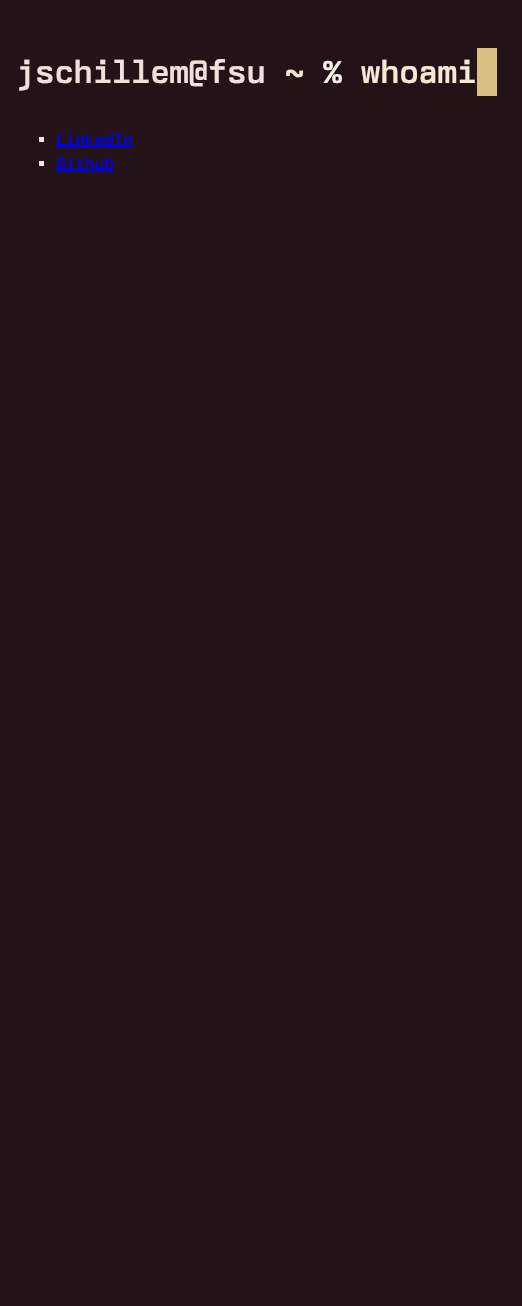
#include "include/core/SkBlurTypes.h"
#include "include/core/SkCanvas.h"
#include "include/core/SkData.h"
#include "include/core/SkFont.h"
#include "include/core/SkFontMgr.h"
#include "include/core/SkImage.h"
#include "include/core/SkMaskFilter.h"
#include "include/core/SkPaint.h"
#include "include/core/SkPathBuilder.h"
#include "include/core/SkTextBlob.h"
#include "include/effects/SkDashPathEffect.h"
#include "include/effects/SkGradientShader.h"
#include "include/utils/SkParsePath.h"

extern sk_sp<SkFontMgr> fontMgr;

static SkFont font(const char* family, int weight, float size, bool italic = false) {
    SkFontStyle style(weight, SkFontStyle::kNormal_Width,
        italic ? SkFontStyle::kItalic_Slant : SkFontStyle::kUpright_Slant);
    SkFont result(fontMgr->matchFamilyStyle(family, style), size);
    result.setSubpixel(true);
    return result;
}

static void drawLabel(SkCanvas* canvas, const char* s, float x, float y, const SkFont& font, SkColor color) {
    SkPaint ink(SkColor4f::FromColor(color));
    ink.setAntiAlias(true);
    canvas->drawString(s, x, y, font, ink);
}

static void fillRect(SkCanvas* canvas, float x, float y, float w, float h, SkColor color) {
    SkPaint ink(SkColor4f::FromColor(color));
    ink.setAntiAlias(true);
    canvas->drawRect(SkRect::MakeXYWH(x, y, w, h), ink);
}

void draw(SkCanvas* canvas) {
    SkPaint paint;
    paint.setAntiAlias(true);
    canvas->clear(0xFF241316);
    fillRect(canvas, 477, 48, 20, 48, 0xFFD9BE84);
    SkFont font1 = font("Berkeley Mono", 700, 32);
    drawLabel(canvas, "jschillem@fsu", 16, 83, font1, 0xFFF2DFDC);
    drawLabel(canvas, "~", 285, 83, font1, 0xFFF2E9D6);
    drawLabel(canvas, "%", 323, 83, font1, 0xFFF9F4EE);
    drawLabel(canvas, "whoami", 361, 83, font1, 0xFFF2E9D6);
    fillRect(canvas, 39, 137, 5, 5, 0xFFF2E9D6);
    SkFont font2 = font("Berkeley Mono", 700, 16);
    drawLabel(canvas, "LinkedIn", 56, 145, font2, 0xFF0000EE);
    fillRect(canvas, 56, 146, 77, 1, 0xFF0000EE);
    fillRect(canvas, 39, 161, 5, 5, 0xFFF2E9D6);
    drawLabel(canvas, "Github", 56, 169, font2, 0xFF0000EE);
    fillRect(canvas, 56, 170, 57, 1, 0xFF0000EE);
}
